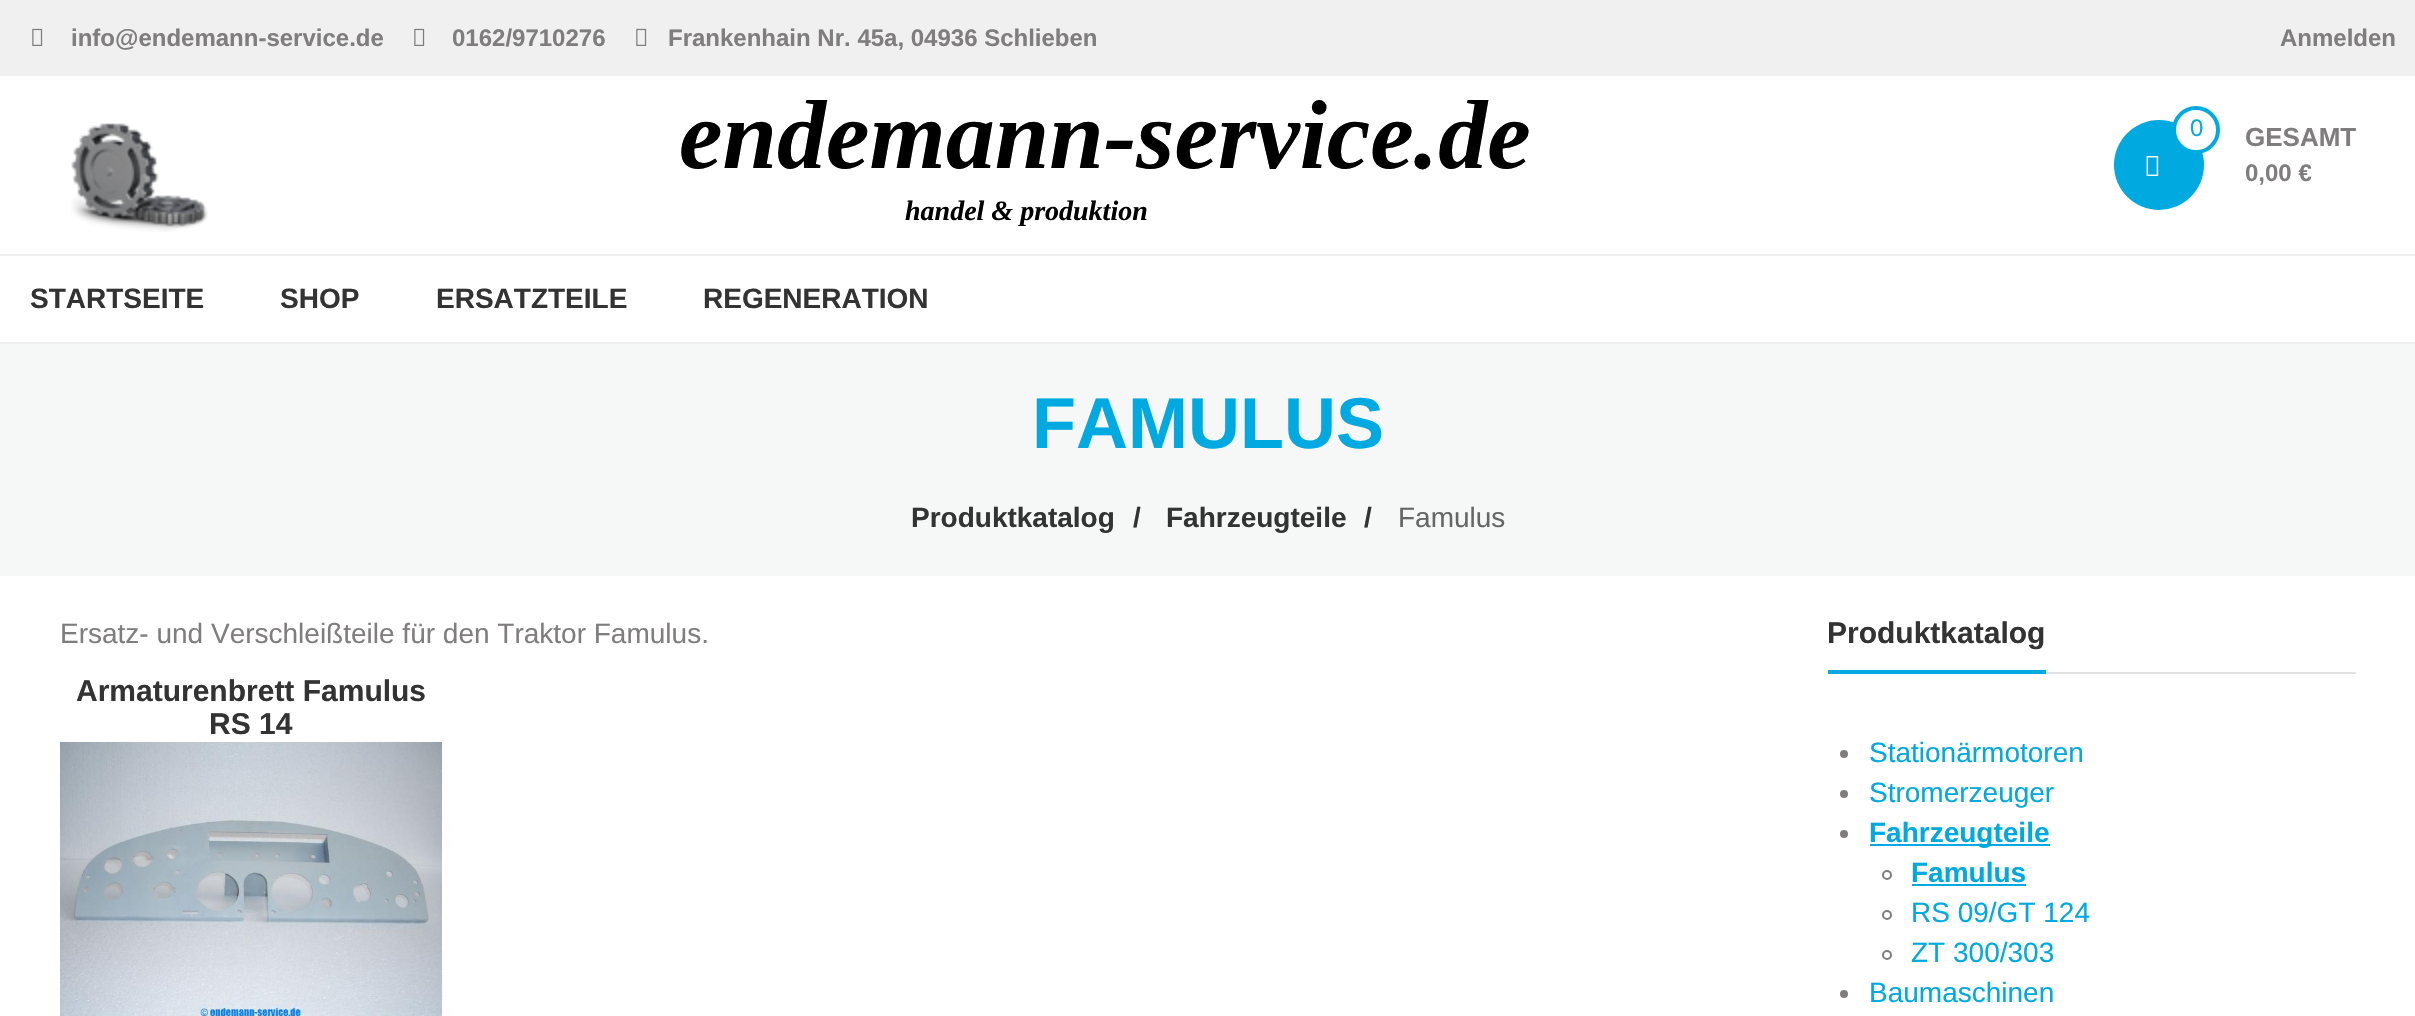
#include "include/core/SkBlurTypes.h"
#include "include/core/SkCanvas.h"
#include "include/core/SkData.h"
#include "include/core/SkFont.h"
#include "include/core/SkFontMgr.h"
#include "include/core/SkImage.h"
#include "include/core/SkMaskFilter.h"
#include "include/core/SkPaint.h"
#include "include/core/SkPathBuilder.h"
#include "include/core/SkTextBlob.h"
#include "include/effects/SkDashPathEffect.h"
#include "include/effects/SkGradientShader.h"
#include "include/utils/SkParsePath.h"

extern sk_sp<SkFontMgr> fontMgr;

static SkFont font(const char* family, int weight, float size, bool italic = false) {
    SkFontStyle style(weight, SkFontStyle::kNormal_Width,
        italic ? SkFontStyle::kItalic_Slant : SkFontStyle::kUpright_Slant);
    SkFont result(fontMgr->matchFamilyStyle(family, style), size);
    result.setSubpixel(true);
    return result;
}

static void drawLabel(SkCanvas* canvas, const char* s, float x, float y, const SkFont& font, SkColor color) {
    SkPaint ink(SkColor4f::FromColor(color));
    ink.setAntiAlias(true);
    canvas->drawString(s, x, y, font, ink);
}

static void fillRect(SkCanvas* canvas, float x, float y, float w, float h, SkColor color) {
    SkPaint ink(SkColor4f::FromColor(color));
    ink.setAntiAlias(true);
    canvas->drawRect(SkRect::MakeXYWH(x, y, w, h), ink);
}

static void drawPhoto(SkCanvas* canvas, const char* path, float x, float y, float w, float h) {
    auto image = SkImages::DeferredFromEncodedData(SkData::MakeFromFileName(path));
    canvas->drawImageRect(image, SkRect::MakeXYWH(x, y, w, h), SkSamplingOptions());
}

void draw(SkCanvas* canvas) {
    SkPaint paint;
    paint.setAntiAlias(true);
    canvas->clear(0xFFFFFFFF);
    fillRect(canvas, 0, 0, 2415, 76, 0xFFF0F0F0);
    drawPhoto(canvas, "assets/img1.png", 32, 28, 11, 18);
    SkFont font1 = font("Liberation Sans", 700, 24);
    drawLabel(canvas, "info@endemann-service.de", 71, 46, font1, 0xFF7F7D7D);
    drawPhoto(canvas, "assets/img1.png", 414, 28, 11, 18);
    drawLabel(canvas, "0162/9710276", 452, 46, font1, 0xFF7F7D7D);
    drawPhoto(canvas, "assets/img1.png", 636, 28, 11, 18);
    drawLabel(canvas, "Frankenhain Nr. 45a, 04936 Schlieben", 668, 46, font1, 0xFF7F7D7D);
    drawLabel(canvas, "Anmelden", 2280, 46, font1, 0xFF7F7D7D);
    drawPhoto(canvas, "assets/img2.png", 71, 123, 137, 109);
    SkFont font2 = font("Liberation Serif", 700, 98, true);
    drawLabel(canvas, "endemann-service.de", 679, 168, font2, 0xFF000000);
    SkFont font3 = font("Liberation Serif", 700, 28, true);
    drawLabel(canvas, "handel & produktion", 905, 220, font3, 0xFF000000);
    paint.setColor(0xFF00A9E0);
    canvas->drawCircle(2159, 165, 45, paint);
    paint.setColor(0xFFFFFFFF);
    canvas->drawCircle(2196, 130, 22, paint);
    paint.setStroke(true);
    paint.setStrokeWidth(4);
    paint.setColor(0xFF00A9E0);
    canvas->drawCircle(2196, 130, 22, paint);
    SkFont font4 = font("Liberation Sans", 400, 24);
    drawLabel(canvas, "0", 2190, 136, font4, 0xFF00A9E0);
    drawPhoto(canvas, "assets/img3.png", 2146, 156, 13, 20);
    SkFont font5 = font("Liberation Sans", 700, 26);
    drawLabel(canvas, "GESAMT", 2245, 146, font5, 0xFF7F7D7D);
    drawLabel(canvas, "0,00 €", 2245, 181, font1, 0xFF7F7D7D);
    fillRect(canvas, 0, 254, 2415, 2, 0xFFEEEEEE);
    fillRect(canvas, 0, 342, 2415, 2, 0xFFEEEEEE);
    SkFont font6 = font("Liberation Sans", 700, 28);
    drawLabel(canvas, "STARTSEITE", 30, 308, font6, 0xFF333333);
    drawLabel(canvas, "SHOP", 280, 308, font6, 0xFF333333);
    drawLabel(canvas, "ERSATZTEILE", 436, 308, font6, 0xFF333333);
    drawLabel(canvas, "REGENERATION", 703, 308, font6, 0xFF333333);
    fillRect(canvas, 0, 344, 2415, 232, 0xFFF6F7F7);
    SkFont font7 = font("Liberation Sans", 700, 72);
    drawLabel(canvas, "FAMULUS", 1032, 448, font7, 0xFF00A9E0);
    drawLabel(canvas, "Produktkatalog", 911, 527, font6, 0xFF333333);
    drawLabel(canvas, "/", 1133, 527, font6, 0xFF333333);
    drawLabel(canvas, "Fahrzeugteile", 1166, 527, font6, 0xFF333333);
    drawLabel(canvas, "/", 1364, 527, font6, 0xFF333333);
    SkFont font8 = font("Liberation Sans", 400, 28);
    drawLabel(canvas, "Famulus", 1398, 527, font8, 0xFF666666);
    drawLabel(canvas, "Ersatz- und Verschleißteile für den Traktor Famulus.", 60, 643, font8, 0xFF7F7D7D);
    SkFont font9 = font("Liberation Sans", 700, 30);
    drawLabel(canvas, "Armaturenbrett Famulus", 76, 701, font9, 0xFF333333);
    drawLabel(canvas, "RS 14", 209, 734, font9, 0xFF333333);
    drawPhoto(canvas, "assets/img4.png", 60, 742, 382, 274);
    fillRect(canvas, 2046, 672, 310, 2, 0xFFE2E2E2);
    fillRect(canvas, 1828, 670, 218, 4, 0xFF00A9E0);
    drawLabel(canvas, "Produktkatalog", 1827, 643, font9, 0xFF333333);
    paint.setStroke(false);
    paint.setColor(0xFF7F7D7D);
    canvas->drawCircle(1844, 754, 4, paint);
    drawLabel(canvas, "Stationärmotoren", 1869, 762, font8, 0xFF00A9E0);
    canvas->drawCircle(1844, 794, 4, paint);
    drawLabel(canvas, "Stromerzeuger", 1869, 802, font8, 0xFF00A9E0);
    canvas->drawCircle(1844, 834, 4, paint);
    fillRect(canvas, 1870, 844, 180, 2, 0xFF00A9E0);
    drawLabel(canvas, "Fahrzeugteile", 1869, 842, font6, 0xFF00A9E0);
    paint.setStroke(true);
    paint.setStrokeWidth(2);
    canvas->drawCircle(1887, 875, 4, paint);
    drawLabel(canvas, "Famulus", 1911, 882, font6, 0xFF00A9E0);
    fillRect(canvas, 1912, 884, 114, 2, 0xFF00A9E0);
    canvas->drawCircle(1887, 915, 4, paint);
    drawLabel(canvas, "RS 09/GT 124", 1911, 922, font8, 0xFF00A9E0);
    canvas->drawCircle(1887, 955, 4, paint);
    drawLabel(canvas, "ZT 300/303", 1911, 962, font8, 0xFF00A9E0);
    paint.setStroke(false);
    canvas->drawCircle(1844, 994, 4, paint);
    drawLabel(canvas, "Baumaschinen", 1869, 1002, font8, 0xFF00A9E0);
}
